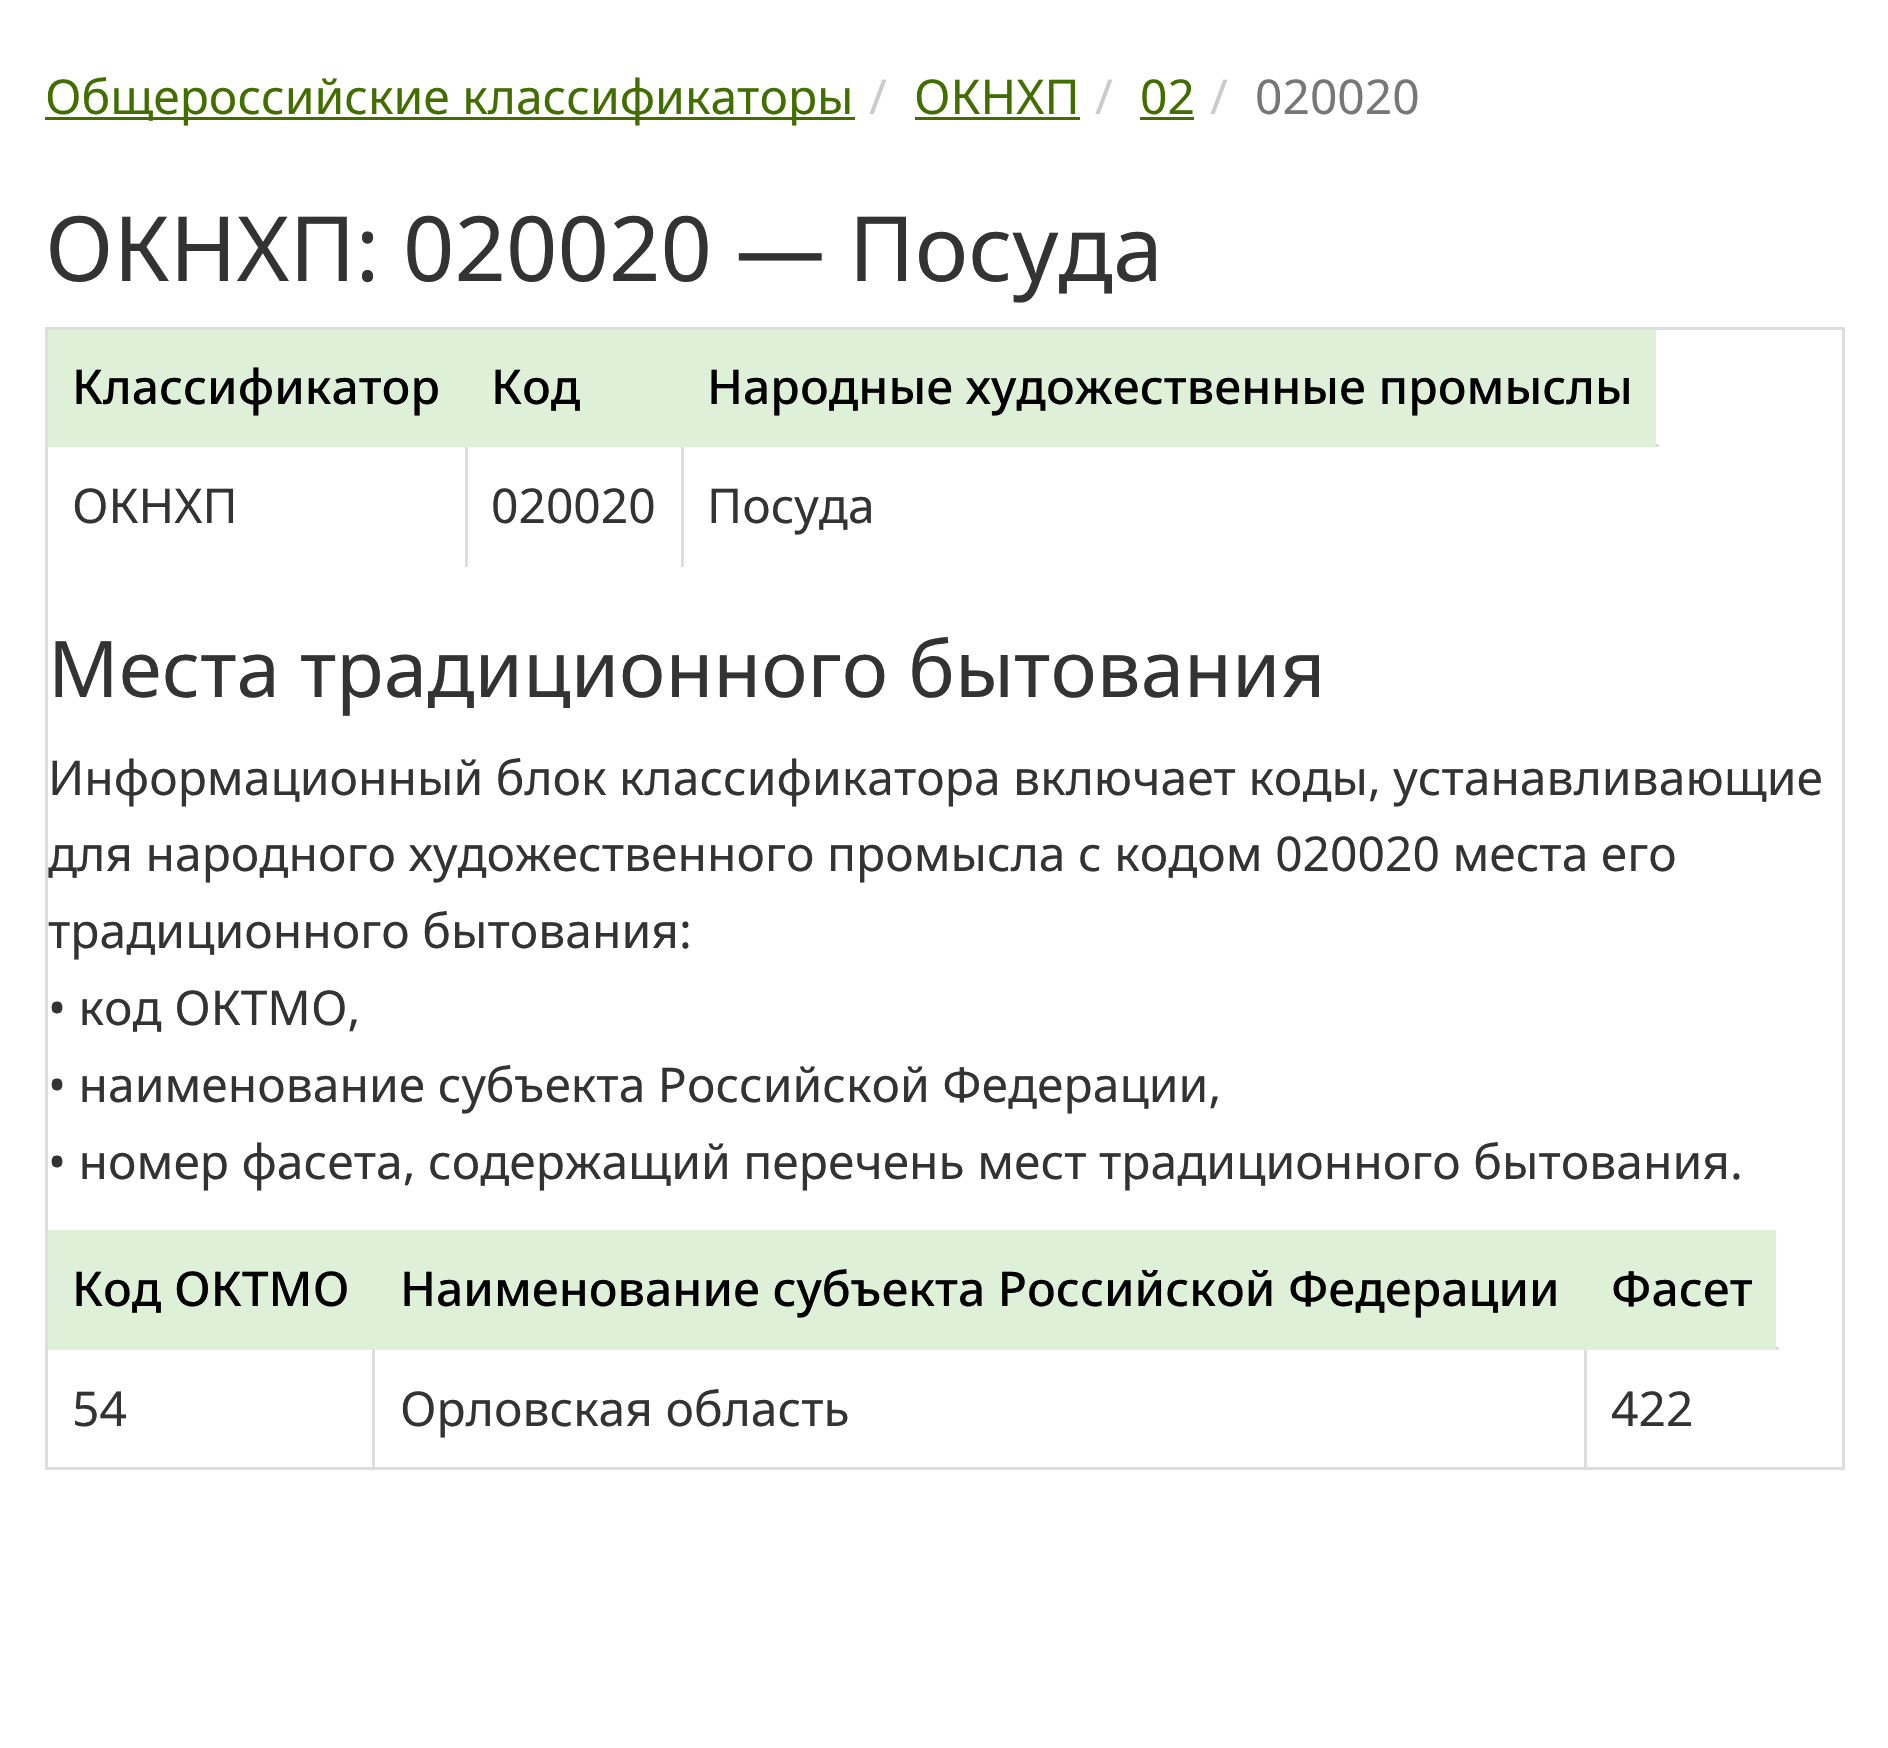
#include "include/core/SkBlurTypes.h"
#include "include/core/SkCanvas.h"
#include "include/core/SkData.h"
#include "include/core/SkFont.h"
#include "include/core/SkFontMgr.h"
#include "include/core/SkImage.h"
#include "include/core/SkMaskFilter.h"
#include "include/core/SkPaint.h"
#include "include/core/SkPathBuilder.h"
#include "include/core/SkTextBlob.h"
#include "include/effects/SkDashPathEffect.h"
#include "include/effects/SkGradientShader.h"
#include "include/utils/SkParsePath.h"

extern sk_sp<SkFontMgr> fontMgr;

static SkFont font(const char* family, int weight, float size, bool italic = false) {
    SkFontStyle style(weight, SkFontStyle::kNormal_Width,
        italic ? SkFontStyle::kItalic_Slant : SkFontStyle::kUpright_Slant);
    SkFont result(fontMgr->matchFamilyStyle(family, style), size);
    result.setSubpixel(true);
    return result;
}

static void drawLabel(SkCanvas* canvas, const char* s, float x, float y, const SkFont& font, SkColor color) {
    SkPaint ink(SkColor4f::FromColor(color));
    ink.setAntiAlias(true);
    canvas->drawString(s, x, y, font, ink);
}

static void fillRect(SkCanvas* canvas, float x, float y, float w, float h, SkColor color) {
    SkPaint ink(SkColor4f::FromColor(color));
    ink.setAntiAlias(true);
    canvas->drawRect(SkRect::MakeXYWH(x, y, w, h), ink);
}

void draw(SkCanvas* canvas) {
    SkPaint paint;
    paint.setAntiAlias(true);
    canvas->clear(0xFFFFFFFF);
    fillRect(canvas, 45, 117, 810, 3, 0xFF426E00);
    SkFont font1 = font("Noto Sans", 400, 48);
    drawLabel(canvas, "Общероссийские классификаторы", 45, 114, font1, 0xFF426E00);
    drawLabel(canvas, "/", 869, 114, font1, 0xFFCCCCCC);
    drawLabel(canvas, "ОКНХП", 914, 114, font1, 0xFF426E00);
    fillRect(canvas, 915, 117, 165, 3, 0xFF426E00);
    drawLabel(canvas, "/", 1095, 114, font1, 0xFFCCCCCC);
    drawLabel(canvas, "02", 1140, 114, font1, 0xFF426E00);
    fillRect(canvas, 1140, 117, 54, 3, 0xFF426E00);
    drawLabel(canvas, "/", 1210, 114, font1, 0xFFCCCCCC);
    drawLabel(canvas, "020020", 1255, 114, font1, 0xFF777777);
    SkFont font2 = font("Noto Sans", 400, 90);
    drawLabel(canvas, "ОКНХП: 020020 — Посуда", 45, 281, font2, 0xFF333333);
    paint.setStroke(true);
    paint.setStrokeWidth(3);
    paint.setColor(0xFFDDDDDD);
    canvas->drawRect(SkRect::MakeXYWH(46.5f, 328.5f, 1797, 1140), paint);
    fillRect(canvas, 465, 444, 3, 123, 0xFFDDDDDD);
    fillRect(canvas, 681, 444, 3, 123, 0xFFDDDDDD);
    fillRect(canvas, 48, 330, 1608, 117, 0xFFDFF0D8);
    SkFont font3 = font("Noto Sans", 500, 48);
    drawLabel(canvas, "Классификатор", 72, 404, font3, 0xFF000000);
    drawLabel(canvas, "Код", 491, 404, font3, 0xFF000000);
    fillRect(canvas, 1656, 444, 3, 3, 0xFFDDDDDD);
    drawLabel(canvas, "Народные художественные промыслы", 707, 404, font3, 0xFF000000);
    drawLabel(canvas, "ОКНХП", 72, 523, font1, 0xFF333333);
    drawLabel(canvas, "020020", 491, 523, font1, 0xFF333333);
    drawLabel(canvas, "Посуда", 707, 523, font1, 0xFF333333);
    SkFont font4 = font("Noto Sans", 400, 78);
    drawLabel(canvas, "Места традиционного бытования", 48, 697, font4, 0xFF333333);
    drawLabel(canvas, "Информационный блок классификатора включает коды, устанавливающие", 48, 795, font1, 0xFF333333);
    drawLabel(canvas, "для народного художественного промысла с кодом 020020 места его", 48, 871, font1, 0xFF333333);
    drawLabel(canvas, "традиционного бытования:", 48, 948, font1, 0xFF333333);
    drawLabel(canvas, "• код ОКТМО,", 48, 1025, font1, 0xFF333333);
    drawLabel(canvas, "• наименование субъекта Российской Федерации,", 48, 1102, font1, 0xFF333333);
    drawLabel(canvas, "• номер фасета, содержащий перечень мест традиционного бытования.", 48, 1179, font1, 0xFF333333);
    fillRect(canvas, 372, 1347, 3, 120, 0xFFDDDDDD);
    fillRect(canvas, 1584, 1347, 3, 120, 0xFFDDDDDD);
    fillRect(canvas, 48, 1230, 1728, 120, 0xFFDFF0D8);
    drawLabel(canvas, "Код ОКТМО", 72, 1306, font3, 0xFF000000);
    drawLabel(canvas, "Наименование субъекта Российской Федерации", 400, 1306, font3, 0xFF000000);
    fillRect(canvas, 1776, 1347, 3, 3, 0xFFDDDDDD);
    drawLabel(canvas, "Фасет", 1611, 1306, font3, 0xFF000000);
    drawLabel(canvas, "54", 72, 1426, font1, 0xFF333333);
    drawLabel(canvas, "Орловская область", 400, 1426, font1, 0xFF333333);
    drawLabel(canvas, "422", 1611, 1426, font1, 0xFF333333);
}
